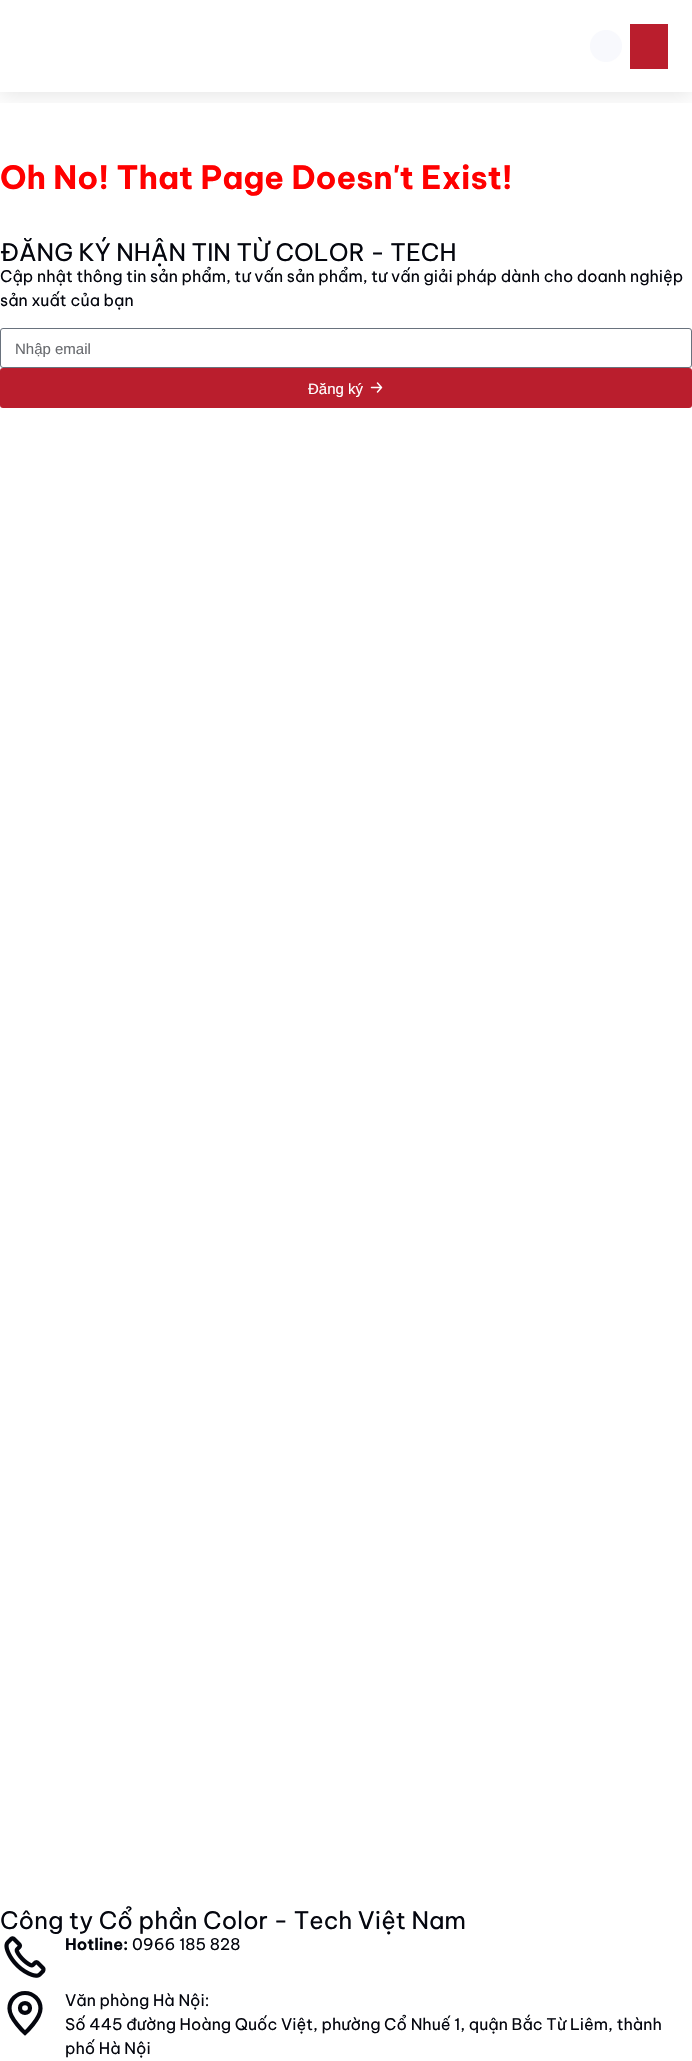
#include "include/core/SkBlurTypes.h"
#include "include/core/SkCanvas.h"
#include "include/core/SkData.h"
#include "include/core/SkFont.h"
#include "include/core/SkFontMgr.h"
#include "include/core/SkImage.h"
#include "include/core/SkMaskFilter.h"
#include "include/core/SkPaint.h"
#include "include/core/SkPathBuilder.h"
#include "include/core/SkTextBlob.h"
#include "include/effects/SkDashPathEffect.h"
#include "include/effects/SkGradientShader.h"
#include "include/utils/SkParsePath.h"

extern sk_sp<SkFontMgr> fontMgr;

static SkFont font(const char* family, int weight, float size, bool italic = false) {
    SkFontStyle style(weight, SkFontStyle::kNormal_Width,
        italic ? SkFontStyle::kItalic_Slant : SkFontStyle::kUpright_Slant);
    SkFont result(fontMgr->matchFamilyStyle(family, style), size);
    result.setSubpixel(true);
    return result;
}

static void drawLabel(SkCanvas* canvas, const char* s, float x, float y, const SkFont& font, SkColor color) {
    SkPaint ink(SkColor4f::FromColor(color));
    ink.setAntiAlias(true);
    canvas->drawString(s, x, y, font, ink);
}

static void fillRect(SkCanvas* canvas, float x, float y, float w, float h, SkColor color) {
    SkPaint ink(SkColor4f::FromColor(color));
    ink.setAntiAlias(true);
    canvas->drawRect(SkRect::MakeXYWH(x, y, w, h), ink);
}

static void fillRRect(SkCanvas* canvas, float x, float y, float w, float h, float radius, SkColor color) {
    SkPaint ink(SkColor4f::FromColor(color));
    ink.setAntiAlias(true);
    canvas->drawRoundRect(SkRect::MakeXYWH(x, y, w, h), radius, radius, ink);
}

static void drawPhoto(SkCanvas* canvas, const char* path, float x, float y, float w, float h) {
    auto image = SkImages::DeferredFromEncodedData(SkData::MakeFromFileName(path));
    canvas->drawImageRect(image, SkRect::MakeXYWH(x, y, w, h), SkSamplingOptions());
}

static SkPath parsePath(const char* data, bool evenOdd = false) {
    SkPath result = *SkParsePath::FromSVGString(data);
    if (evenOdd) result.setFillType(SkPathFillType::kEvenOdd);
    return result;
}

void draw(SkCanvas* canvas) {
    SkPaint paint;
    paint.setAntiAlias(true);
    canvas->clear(0xFFFFFFFF);
    canvas->save();
    canvas->clipRect(SkRect::MakeXYWH(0, 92, 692, 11));
    paint.setColor(0x1A000000);
    paint.setMaskFilter(SkMaskFilter::MakeBlur(kNormal_SkBlurStyle, 10));
    canvas->drawRect(SkRect::MakeXYWH(0, 3, 692, 92), paint);
    paint.setMaskFilter(nullptr);
    canvas->restore();
    paint.setColor(0xFFF8F9FD);
    canvas->drawCircle(606, 46, 16, paint);
    fillRect(canvas, 630, 24, 38, 45, 0xFFBA1E2D);
    SkFont font1 = font("Be Vietnam Pro", 700, 32);
    drawLabel(canvas, "Oh No! That Page Doesn't Exist!", 0, 189, font1, 0xFFFF0000);
    SkFont font2 = font("Be Vietnam Pro", 400, 24);
    drawLabel(canvas, "ĐĂNG KÝ NHẬN TIN TỪ COLOR - TECH", 0, 261, font2, 0xFF04060E);
    SkFont font3 = font("Be Vietnam Pro", 400, 16);
    drawLabel(canvas, "Cập nhật thông tin sản phẩm, tư vấn sản phẩm, tư vấn giải pháp dành cho doanh nghiệp", 0, 282, font3, 0xFF04060E);
    drawLabel(canvas, "sản xuất của bạn", 0, 306, font3, 0xFF04060E);
    paint.setStroke(true);
    paint.setStrokeWidth(1);
    paint.setColor(0xFF69727D);
    canvas->drawRoundRect(SkRect::MakeXYWH(0.5f, 328.5f, 691, 39), 2.5f, 2.5f, paint);
    SkFont font4 = font("Liberation Sans", 400, 15);
    drawLabel(canvas, "Nhập email", 15, 354, font4, 0xFF686A6E);
    fillRRect(canvas, 0, 368, 692, 40, 3, 0xFFBA1E2D);
    drawLabel(canvas, "Đăng ký", 308, 394, font4, 0xFFFFFFFF);
    paint.setStrokeWidth(1.5f);
    paint.setStrokeCap(SkPaint::kRound_Cap);
    paint.setStrokeJoin(SkPaint::kRound_Join);
    paint.setColor(0xFFFFFFFF);
    canvas->drawPath(parsePath("M377.5 383L381.5 387.5M381.5 387.5L377.5 392M381.5 387.5H371.5"), paint);
    drawLabel(canvas, "Công ty Cổ phần Color - Tech Việt Nam", 0, 1929, font2, 0xFF04060E);
    drawPhoto(canvas, "assets/img1.png", 4, 1936, 42, 42);
    SkFont font5 = font("Be Vietnam Pro", 700, 16);
    drawLabel(canvas, "Hotline:", 65, 1950, font5, 0xFF04060E);
    drawLabel(canvas, "0966 185 828", 132, 1950, font3, 0xFF04060E);
    paint.setStrokeWidth(4.2f);
    paint.setStrokeCap(SkPaint::kButt_Cap);
    paint.setStrokeJoin(SkPaint::kMiter_Join);
    paint.setColor(0xFF04060E);
    canvas->drawPath(parsePath("M25 2033C25 2033 40.5 2019 40.5 2008.5C40.5 2000 33.5 1993 25 1993C16.5 1993 9.5 2000 9.5 2008.5C9.5 2019 25 2033 25 2033ZM30 2008C30 2014.5 20 2014.5 20 2008C20 2001.5 30 2001.5 30 2008Z"), paint);
    drawLabel(canvas, "Văn phòng Hà Nội:", 65, 2006, font3, 0xFF04060E);
    drawLabel(canvas, "Số 445 đường Hoàng Quốc Việt, phường Cổ Nhuế 1, quận Bắc Từ Liêm, thành", 65, 2030, font3, 0xFF04060E);
    drawLabel(canvas, "phố Hà Nội", 65, 2054, font3, 0xFF04060E);
}
